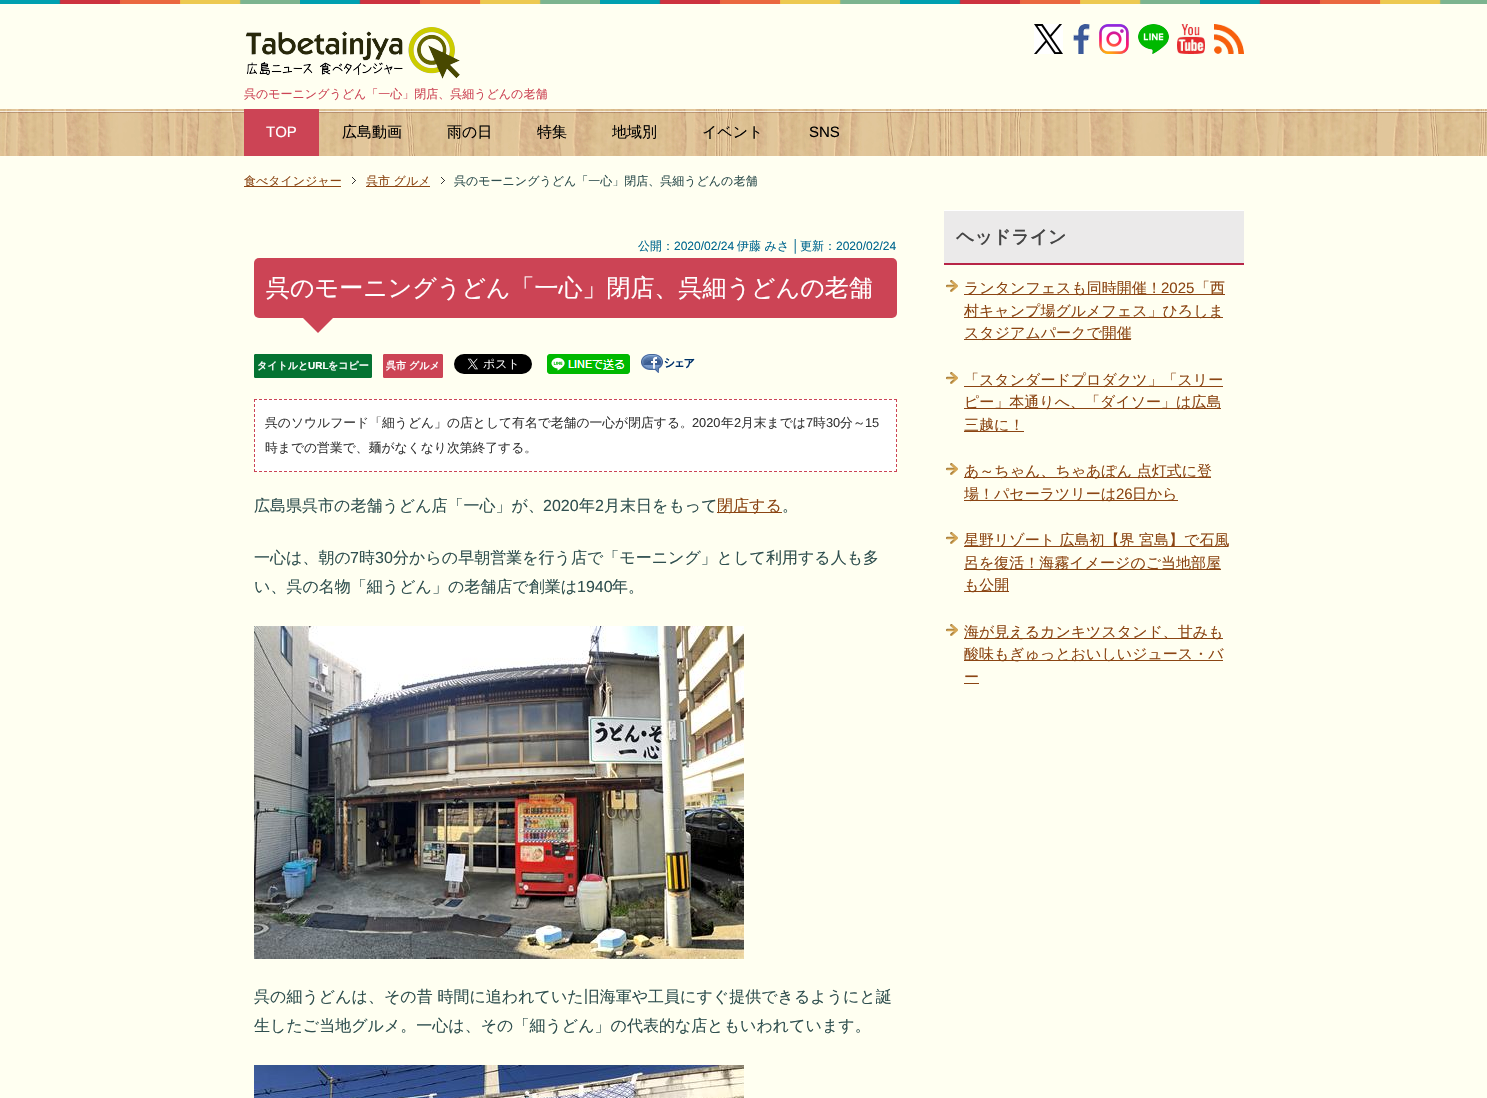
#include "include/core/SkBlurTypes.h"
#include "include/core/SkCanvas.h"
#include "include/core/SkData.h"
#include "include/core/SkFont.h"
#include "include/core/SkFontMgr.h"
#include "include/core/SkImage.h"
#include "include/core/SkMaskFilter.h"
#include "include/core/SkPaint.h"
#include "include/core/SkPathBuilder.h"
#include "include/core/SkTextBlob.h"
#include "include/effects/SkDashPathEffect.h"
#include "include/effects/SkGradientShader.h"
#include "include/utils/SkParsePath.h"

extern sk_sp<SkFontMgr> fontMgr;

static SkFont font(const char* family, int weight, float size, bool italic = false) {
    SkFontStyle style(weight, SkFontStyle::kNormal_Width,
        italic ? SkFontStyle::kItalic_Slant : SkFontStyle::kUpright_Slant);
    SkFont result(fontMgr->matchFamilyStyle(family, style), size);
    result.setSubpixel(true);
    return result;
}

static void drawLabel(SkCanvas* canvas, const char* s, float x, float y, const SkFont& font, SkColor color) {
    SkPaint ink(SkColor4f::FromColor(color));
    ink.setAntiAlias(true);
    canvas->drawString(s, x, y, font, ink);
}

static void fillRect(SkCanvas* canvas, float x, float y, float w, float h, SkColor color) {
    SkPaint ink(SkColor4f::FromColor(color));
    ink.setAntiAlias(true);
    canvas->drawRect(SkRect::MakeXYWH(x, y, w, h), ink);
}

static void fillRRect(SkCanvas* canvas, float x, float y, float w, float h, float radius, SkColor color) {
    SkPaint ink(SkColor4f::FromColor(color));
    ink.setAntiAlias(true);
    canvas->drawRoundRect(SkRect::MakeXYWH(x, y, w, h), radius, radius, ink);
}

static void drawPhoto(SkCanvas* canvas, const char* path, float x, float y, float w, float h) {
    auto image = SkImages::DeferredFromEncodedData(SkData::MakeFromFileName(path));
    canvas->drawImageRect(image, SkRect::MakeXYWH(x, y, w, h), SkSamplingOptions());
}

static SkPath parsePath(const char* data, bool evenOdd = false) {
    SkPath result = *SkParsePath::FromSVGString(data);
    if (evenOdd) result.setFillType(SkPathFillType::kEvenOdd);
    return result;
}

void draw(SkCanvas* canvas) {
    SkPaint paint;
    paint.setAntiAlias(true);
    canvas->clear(0xFFFFFFFF);
    drawPhoto(canvas, "assets/img1.png", 0, 0, 1487, 4);
    fillRect(canvas, 0, 4, 1487, 1094, 0xFFFFFFF1);
    drawPhoto(canvas, "assets/img2.png", 1034, 24, 29, 30);
    drawPhoto(canvas, "assets/img3.png", 1073, 24, 17, 30);
    drawPhoto(canvas, "assets/img4.png", 1099, 24, 30, 30);
    drawPhoto(canvas, "assets/img5.png", 1138, 24, 31, 30);
    drawPhoto(canvas, "assets/img6.png", 1177, 24, 28, 30);
    drawPhoto(canvas, "assets/img7.png", 1214, 24, 30, 30);
    drawPhoto(canvas, "assets/img8.png", 245, 27, 215, 52);
    SkFont font1 = font("WenQuanYi Zen Hei", 500, 12);
    drawLabel(canvas, "呉のモーニングうどん「一心」閉店、呉細うどんの老舗", 244, 98, font1, 0xFFCC4455);
    drawPhoto(canvas, "assets/img9.png", 0, 109, 1487, 47);
    fillRect(canvas, 244, 109, 75, 47, 0xFFCC4455);
    SkFont font2 = font("Liberation Sans", 400, 15);
    drawLabel(canvas, "TOP", 266, 137, font2, 0xFFFFFFFF);
    SkFont font3 = font("WenQuanYi Zen Hei", 500, 15);
    drawLabel(canvas, "広島動画", 342, 137, font3, 0xFF000000);
    drawLabel(canvas, "雨の日", 447, 137, font3, 0xFF000000);
    drawLabel(canvas, "特集", 537, 137, font3, 0xFF000000);
    drawLabel(canvas, "地域別", 612, 137, font3, 0xFF000000);
    drawLabel(canvas, "イベント", 702, 137, font3, 0xFF000000);
    drawLabel(canvas, "SNS", 809, 137, font2, 0xFF000000);
    fillRect(canvas, 244, 186, 97, 1, 0xFF8B4513);
    drawLabel(canvas, "食べタインジャー", 244, 185, font1, 0xFF8B4513);
    drawPhoto(canvas, "assets/img10.png", 352, 177, 4, 7);
    fillRect(canvas, 366, 186, 64, 1, 0xFF8B4513);
    drawLabel(canvas, "呉市 グルメ", 366, 185, font1, 0xFF8B4513);
    drawPhoto(canvas, "assets/img10.png", 441, 177, 4, 7);
    drawLabel(canvas, "呉のモーニングうどん「一心」閉店、呉細うどんの老舗", 454, 185, font1, 0xFF2F4F4F);
    drawLabel(canvas, "公開：", 638, 250, font1, 0xFF01678F);
    SkFont font4 = font("Liberation Sans", 400, 12);
    drawLabel(canvas, "2020/02/24", 674, 250, font4, 0xFF01678F);
    drawLabel(canvas, "伊藤 みさ", 737, 250, font1, 0xFF01678F);
    drawLabel(canvas, "│", 792, 250, font4, 0xFF01678F);
    drawLabel(canvas, "更新：", 800, 250, font1, 0xFF01678F);
    drawLabel(canvas, "2020/02/24", 836, 250, font4, 0xFF01678F);
    fillRRect(canvas, 254, 258, 643, 60, 5, 0xFFCC4455);
    SkFont font5 = font("WenQuanYi Zen Hei", 500, 24);
    drawLabel(canvas, "呉のモーニングうどん「一心」閉店、呉細うどんの老舗", 266, 296, font5, 0xFFFFFFFF);
    paint.setColor(0xFFCC4455);
    canvas->drawPath(parsePath("M303 318H333L318 333Z"), paint);
    paint.setColor(0xFF057332);
    canvas->drawRoundRect(SkRect::MakeXYWH(254.5f, 354.5f, 117, 23), 0.5f, 0.5f, paint);
    paint.setStroke(true);
    paint.setStrokeWidth(1);
    canvas->drawRoundRect(SkRect::MakeXYWH(254.5f, 354.5f, 117, 23), 0.5f, 0.5f, paint);
    SkFont font6 = font("WenQuanYi Zen Hei", 700, 10);
    drawLabel(canvas, "タイトルと", 257, 369, font6, 0xFFFFFFFF);
    SkFont font7 = font("Liberation Sans", 700, 10);
    drawLabel(canvas, "URL", 308, 369, font7, 0xFFFFFFFF);
    drawLabel(canvas, "をコピー", 328, 369, font6, 0xFFFFFFFF);
    paint.setStroke(false);
    paint.setColor(0xFFCC4455);
    canvas->drawRoundRect(SkRect::MakeXYWH(383.5f, 354.5f, 59, 23), 0.5f, 0.5f, paint);
    paint.setStroke(true);
    canvas->drawRoundRect(SkRect::MakeXYWH(383.5f, 354.5f, 59, 23), 0.5f, 0.5f, paint);
    drawLabel(canvas, "呉市 グルメ", 386, 369, font6, 0xFFFFFFFF);
    drawPhoto(canvas, "assets/img11.png", 454, 354, 78, 20);
    drawPhoto(canvas, "assets/img12.png", 547, 354, 83, 20);
    drawPhoto(canvas, "assets/img13.png", 641, 354, 54, 19);
    fillRect(canvas, 254, 399, 643, 73, 0xFFFFFFFF);
    paint.setPathEffect(SkDashPathEffect::Make({{3, 2}}, 0));
    canvas->drawPath(parsePath("M254 399.5H897"), paint);
    paint.setPathEffect(nullptr);
    paint.setPathEffect(SkDashPathEffect::Make({{3, 2}}, 0));
    canvas->drawPath(parsePath("M896.5 399V472"), paint);
    paint.setPathEffect(nullptr);
    paint.setPathEffect(SkDashPathEffect::Make({{3, 2}}, 0));
    canvas->drawPath(parsePath("M254 471.5H897"), paint);
    paint.setPathEffect(nullptr);
    paint.setPathEffect(SkDashPathEffect::Make({{3, 2}}, 0));
    canvas->drawPath(parsePath("M254.5 399V472"), paint);
    paint.setPathEffect(nullptr);
    SkFont font8 = font("WenQuanYi Zen Hei", 500, 12.8f);
    drawLabel(canvas, "呉のソウルフード「細うどん」の店として有名で老舗の一心が閉店する。", 265, 427, font8, 0xFF363636);
    SkFont font9 = font("Liberation Sans", 400, 12.8f);
    drawLabel(canvas, "2020", 692, 427, font9, 0xFF363636);
    drawLabel(canvas, "年", 721, 427, font8, 0xFF363636);
    drawLabel(canvas, "2", 734, 427, font9, 0xFF363636);
    drawLabel(canvas, "月末までは", 741, 427, font8, 0xFF363636);
    drawLabel(canvas, "7", 806, 427, font9, 0xFF363636);
    drawLabel(canvas, "時", 813, 427, font8, 0xFF363636);
    drawLabel(canvas, "30", 826, 427, font9, 0xFF363636);
    drawLabel(canvas, "分～", 840, 427, font8, 0xFF363636);
    drawLabel(canvas, "15", 865, 427, font9, 0xFF363636);
    drawLabel(canvas, "時までの営業で、麺がなくなり次第終了する。", 265, 452, font8, 0xFF363636);
    SkFont font10 = font("WenQuanYi Zen Hei", 500, 16);
    drawLabel(canvas, "広島県呉市の老舗うどん店「一心」が、", 254, 511, font10, 0xFF2F4F4F);
    SkFont font11 = font("Liberation Sans", 400, 16);
    drawLabel(canvas, "2020", 543, 511, font11, 0xFF2F4F4F);
    drawLabel(canvas, "年", 579, 511, font10, 0xFF2F4F4F);
    drawLabel(canvas, "2", 595, 511, font11, 0xFF2F4F4F);
    drawLabel(canvas, "月末日をもって", 604, 511, font10, 0xFF2F4F4F);
    fillRect(canvas, 717, 512, 65, 1, 0xFF8B4513);
    drawLabel(canvas, "閉店する", 717, 511, font10, 0xFF8B4513);
    drawLabel(canvas, "。", 782, 511, font10, 0xFF2F4F4F);
    drawLabel(canvas, "一心は、朝の", 254, 563, font10, 0xFF2F4F4F);
    drawLabel(canvas, "7", 350, 563, font11, 0xFF2F4F4F);
    drawLabel(canvas, "時", 359, 563, font10, 0xFF2F4F4F);
    drawLabel(canvas, "30", 375, 563, font11, 0xFF2F4F4F);
    drawLabel(canvas, "分からの早朝営業を行う店で「モーニング」として利用する人も多", 393, 563, font10, 0xFF2F4F4F);
    drawLabel(canvas, "い、呉の名物「細うどん」の老舗店で創業は", 254, 592, font10, 0xFF2F4F4F);
    drawLabel(canvas, "1940", 577, 592, font11, 0xFF2F4F4F);
    drawLabel(canvas, "年。", 612, 592, font10, 0xFF2F4F4F);
    drawPhoto(canvas, "assets/img14.png", 254, 626, 490, 333);
    drawLabel(canvas, "呉の細うどんは、その昔 時間に追われていた旧海軍や工員にすぐ提供できるようにと誕", 254, 1002, font10, 0xFF2F4F4F);
    drawLabel(canvas, "生したご当地グルメ。一心は、その「細うどん」の代表的な店ともいわれています。", 254, 1031, font10, 0xFF2F4F4F);
    drawPhoto(canvas, "assets/img15.png", 254, 1065, 490, 33);
    fillRect(canvas, 944, 211, 300, 52, 0xFFEBEAEA);
    fillRect(canvas, 944, 210, 300, 1, 0xFFFFFFFF);
    fillRect(canvas, 944, 263, 300, 2, 0xFFB72547);
    SkFont font12 = font("WenQuanYi Zen Hei", 700, 18);
    drawLabel(canvas, "ヘッドライン", 956, 243, font12, 0xFF454545);
    drawPhoto(canvas, "assets/img16.png", 946, 280, 12, 12);
    fillRect(canvas, 964, 294, 261, 1, 0xFF8B4513);
    drawLabel(canvas, "ランタンフェスも同時開催！", 964, 293, font3, 0xFF8B4513);
    drawLabel(canvas, "2025", 1161, 293, font2, 0xFF8B4513);
    drawLabel(canvas, "「西", 1195, 293, font3, 0xFF8B4513);
    fillRect(canvas, 964, 317, 259, 1, 0xFF8B4513);
    drawLabel(canvas, "村キャンプ場グルメフェス」ひろしま", 964, 316, font3, 0xFF8B4513);
    fillRect(canvas, 964, 339, 167, 1, 0xFF8B4513);
    drawLabel(canvas, "スタジアムパークで開催", 964, 338, font3, 0xFF8B4513);
    drawPhoto(canvas, "assets/img16.png", 946, 372, 12, 12);
    fillRect(canvas, 964, 386, 259, 1, 0xFF8B4513);
    drawLabel(canvas, "「スタンダードプロダクツ」「スリー", 964, 385, font3, 0xFF8B4513);
    fillRect(canvas, 964, 408, 257, 1, 0xFF8B4513);
    drawLabel(canvas, "ピー」本通りへ、「ダイソー」は広島", 964, 407, font3, 0xFF8B4513);
    fillRect(canvas, 964, 431, 60, 1, 0xFF8B4513);
    drawLabel(canvas, "三越に！", 964, 430, font3, 0xFF8B4513);
    drawPhoto(canvas, "assets/img16.png", 946, 463, 12, 12);
    fillRect(canvas, 964, 477, 247, 1, 0xFF8B4513);
    drawLabel(canvas, "あ～ちゃん、ちゃあぽん 点灯式に登", 964, 476, font3, 0xFF8B4513);
    fillRect(canvas, 964, 500, 214, 1, 0xFF8B4513);
    drawLabel(canvas, "場！パセーラツリーは", 964, 499, font3, 0xFF8B4513);
    drawLabel(canvas, "26", 1116, 499, font2, 0xFF8B4513);
    drawLabel(canvas, "日から", 1132, 499, font3, 0xFF8B4513);
    drawPhoto(canvas, "assets/img16.png", 946, 532, 12, 12);
    fillRect(canvas, 964, 546, 264, 1, 0xFF8B4513);
    drawLabel(canvas, "星野リゾート 広島初【界 宮島】で石風", 964, 545, font3, 0xFF8B4513);
    fillRect(canvas, 964, 569, 257, 1, 0xFF8B4513);
    drawLabel(canvas, "呂を復活！海霧イメージのご当地部屋", 964, 568, font3, 0xFF8B4513);
    fillRect(canvas, 964, 591, 45, 1, 0xFF8B4513);
    drawLabel(canvas, "も公開", 964, 590, font3, 0xFF8B4513);
    drawPhoto(canvas, "assets/img16.png", 946, 624, 12, 12);
    fillRect(canvas, 964, 638, 259, 1, 0xFF8B4513);
    drawLabel(canvas, "海が見えるカンキツスタンド、甘みも", 964, 637, font3, 0xFF8B4513);
    fillRect(canvas, 964, 660, 259, 1, 0xFF8B4513);
    drawLabel(canvas, "酸味もぎゅっとおいしいジュース・バ", 964, 659, font3, 0xFF8B4513);
    drawLabel(canvas, "ー", 964, 682, font3, 0xFF8B4513);
    fillRect(canvas, 964, 683, 15, 1, 0xFF8B4513);
}
